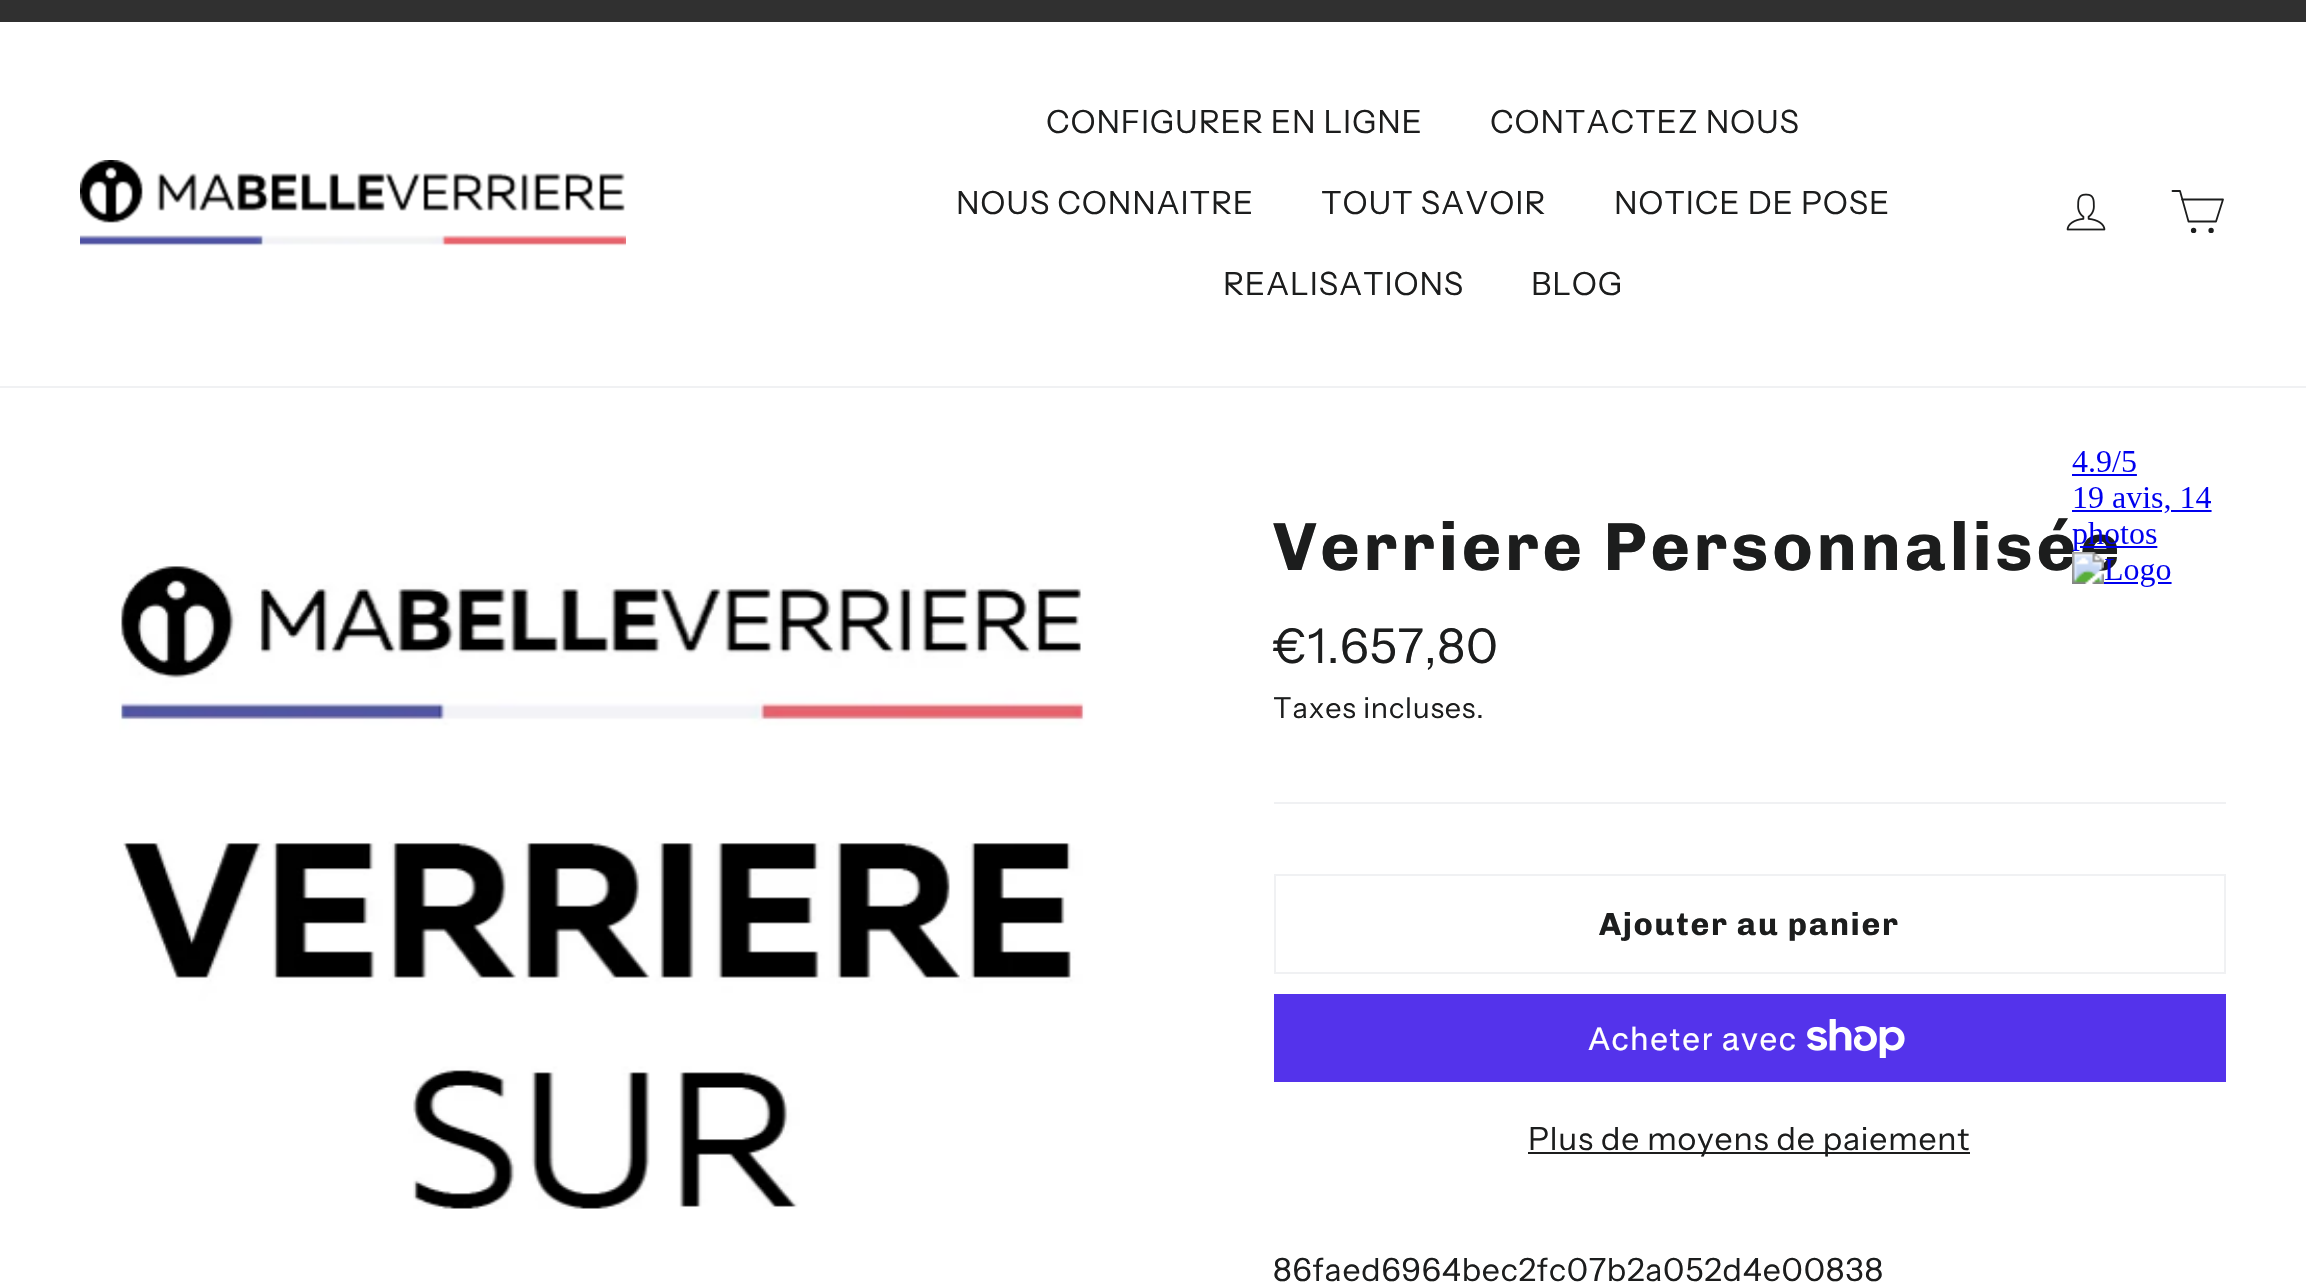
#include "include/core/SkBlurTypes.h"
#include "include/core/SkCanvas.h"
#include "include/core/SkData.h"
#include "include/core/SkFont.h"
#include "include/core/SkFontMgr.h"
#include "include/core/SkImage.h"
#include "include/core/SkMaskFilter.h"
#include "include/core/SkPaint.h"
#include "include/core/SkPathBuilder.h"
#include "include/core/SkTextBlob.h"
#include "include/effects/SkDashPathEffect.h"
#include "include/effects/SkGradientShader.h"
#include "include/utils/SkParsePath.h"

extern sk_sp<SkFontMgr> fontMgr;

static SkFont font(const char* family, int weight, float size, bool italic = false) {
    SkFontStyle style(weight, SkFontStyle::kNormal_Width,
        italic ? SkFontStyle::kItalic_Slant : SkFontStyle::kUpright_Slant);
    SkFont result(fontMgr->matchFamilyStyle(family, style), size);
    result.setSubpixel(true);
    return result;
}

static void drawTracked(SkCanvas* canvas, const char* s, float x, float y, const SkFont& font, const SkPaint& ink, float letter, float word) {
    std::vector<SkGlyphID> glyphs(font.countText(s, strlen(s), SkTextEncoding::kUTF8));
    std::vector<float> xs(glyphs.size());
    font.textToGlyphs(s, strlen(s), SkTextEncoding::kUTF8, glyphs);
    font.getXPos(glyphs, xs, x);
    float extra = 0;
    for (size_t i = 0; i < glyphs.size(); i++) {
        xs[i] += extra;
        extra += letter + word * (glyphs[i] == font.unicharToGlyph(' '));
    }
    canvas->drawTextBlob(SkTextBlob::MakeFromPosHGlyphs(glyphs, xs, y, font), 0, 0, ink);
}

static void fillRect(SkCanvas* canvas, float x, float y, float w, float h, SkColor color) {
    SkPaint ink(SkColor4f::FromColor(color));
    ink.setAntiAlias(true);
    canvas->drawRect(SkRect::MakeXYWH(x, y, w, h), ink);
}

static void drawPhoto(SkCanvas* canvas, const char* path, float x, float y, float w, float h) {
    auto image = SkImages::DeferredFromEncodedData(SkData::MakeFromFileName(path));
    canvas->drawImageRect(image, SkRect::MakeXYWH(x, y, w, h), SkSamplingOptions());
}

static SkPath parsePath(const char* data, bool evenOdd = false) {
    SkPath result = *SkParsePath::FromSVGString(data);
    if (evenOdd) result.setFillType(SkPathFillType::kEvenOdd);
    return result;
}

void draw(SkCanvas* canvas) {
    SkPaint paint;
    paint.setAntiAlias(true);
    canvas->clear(0xFFFFFFFF);
    fillRect(canvas, 0, 0, 2306, 22, 0xFF303030);
    fillRect(canvas, 0, 386, 2306, 2, 0xFFF0F1F3);
    drawPhoto(canvas, "assets/img1.png", 80, 160, 546, 86);
    SkFont font1 = font("Instrument Sans", 400, 32);
    paint.setColor(0xFF1C1D1D);
    drawTracked(canvas, "CONFIGURER EN LIGNE", 1046, 133, font1, paint, 0.8f, 0);
    drawTracked(canvas, "CONTACTEZ NOUS", 1490, 133, font1, paint, 0.8f, 0);
    drawTracked(canvas, "NOUS CONNAITRE", 956, 214, font1, paint, 0.8f, 0);
    drawTracked(canvas, "TOUT SAVOIR", 1321, 214, font1, paint, 0.8f, 0);
    drawTracked(canvas, "NOTICE DE POSE", 1614, 214, font1, paint, 0.8f, 0);
    drawTracked(canvas, "REALISATIONS", 1223, 295, font1, paint, 0.8f, 0);
    drawTracked(canvas, "BLOG", 1531, 295, font1, paint, 0.8f, 0);
    drawPhoto(canvas, "assets/img2.png", 2066, 193, 40, 38);
    paint.setStroke(true);
    paint.setStrokeWidth(1.8f);
    paint.setStrokeCap(SkPaint::kRound_Cap);
    paint.setStrokeJoin(SkPaint::kRound_Join);
    canvas->drawPath(parsePath("M2182 199.5H2223L2216 221.5H2188.5L2180 191H2172.5"), paint);
    paint.setStroke(false);
    canvas->drawCircle(2193.6f, 230.4f, 1.8f, paint);
    paint.setStroke(true);
    paint.setStrokeCap(SkPaint::kButt_Cap);
    paint.setStrokeJoin(SkPaint::kMiter_Join);
    canvas->drawCircle(2193.6f, 230.4f, 1.8f, paint);
    paint.setStroke(false);
    canvas->drawCircle(2211.1f, 230.4f, 1.8f, paint);
    paint.setStroke(true);
    canvas->drawCircle(2211.1f, 230.4f, 1.8f, paint);
    drawPhoto(canvas, "assets/img3.png", 119, 566, 966, 643);
    SkFont font2 = font("Chivo", 700, 68);
    paint.setStroke(false);
    drawTracked(canvas, "Verriere Personnalisée", 1273, 570, font2, paint, 3.4f, 0);
    SkFont font3 = font("Instrument Sans", 400, 48);
    drawTracked(canvas, "€1.657,80", 1273, 663, font3, paint, 0.8f, 0);
    SkFont font4 = font("Instrument Sans", 400, 28.75f);
    drawTracked(canvas, "Taxes incluses.", 1273, 718, font4, paint, 0.8f, 0);
    fillRect(canvas, 1274, 802, 952, 2, 0xFFF0F1F3);
    paint.setStroke(true);
    paint.setStrokeWidth(2);
    paint.setColor(0xFFF0F1F3);
    canvas->drawRect(SkRect::MakeXYWH(1275, 875, 950, 98), paint);
    SkFont font5 = font("Chivo", 700, 32);
    paint.setStroke(false);
    paint.setColor(0xFF1C1D1D);
    drawTracked(canvas, "Ajouter au panier", 1599, 935, font5, paint, 1.6f, 0);
    fillRect(canvas, 1274, 994, 952, 88, 0xFF5433EB);
    SkFont font6 = font("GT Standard", 400, 32);
    paint.setColor(0xFFFFFFFF);
    drawTracked(canvas, "Acheter avec", 1588, 1050, font6, paint, 0.8f, 0);
    drawPhoto(canvas, "assets/img4.png", 1807, 1019, 98, 39);
    fillRect(canvas, 1528, 1152, 442, 2, 0xFF1C1D1D);
    paint.setColor(0xFF1C1D1D);
    drawTracked(canvas, "Plus de moyens de paiement", 1528, 1150, font1, paint, 0.8f, 0);
    drawTracked(canvas, "86faed6964bec2fc07b2a052d4e00838", 1273, 1281, font1, paint, 0.8f, 0);
    drawPhoto(canvas, "assets/img5.png", 2072, 451, 140, 136);
}
